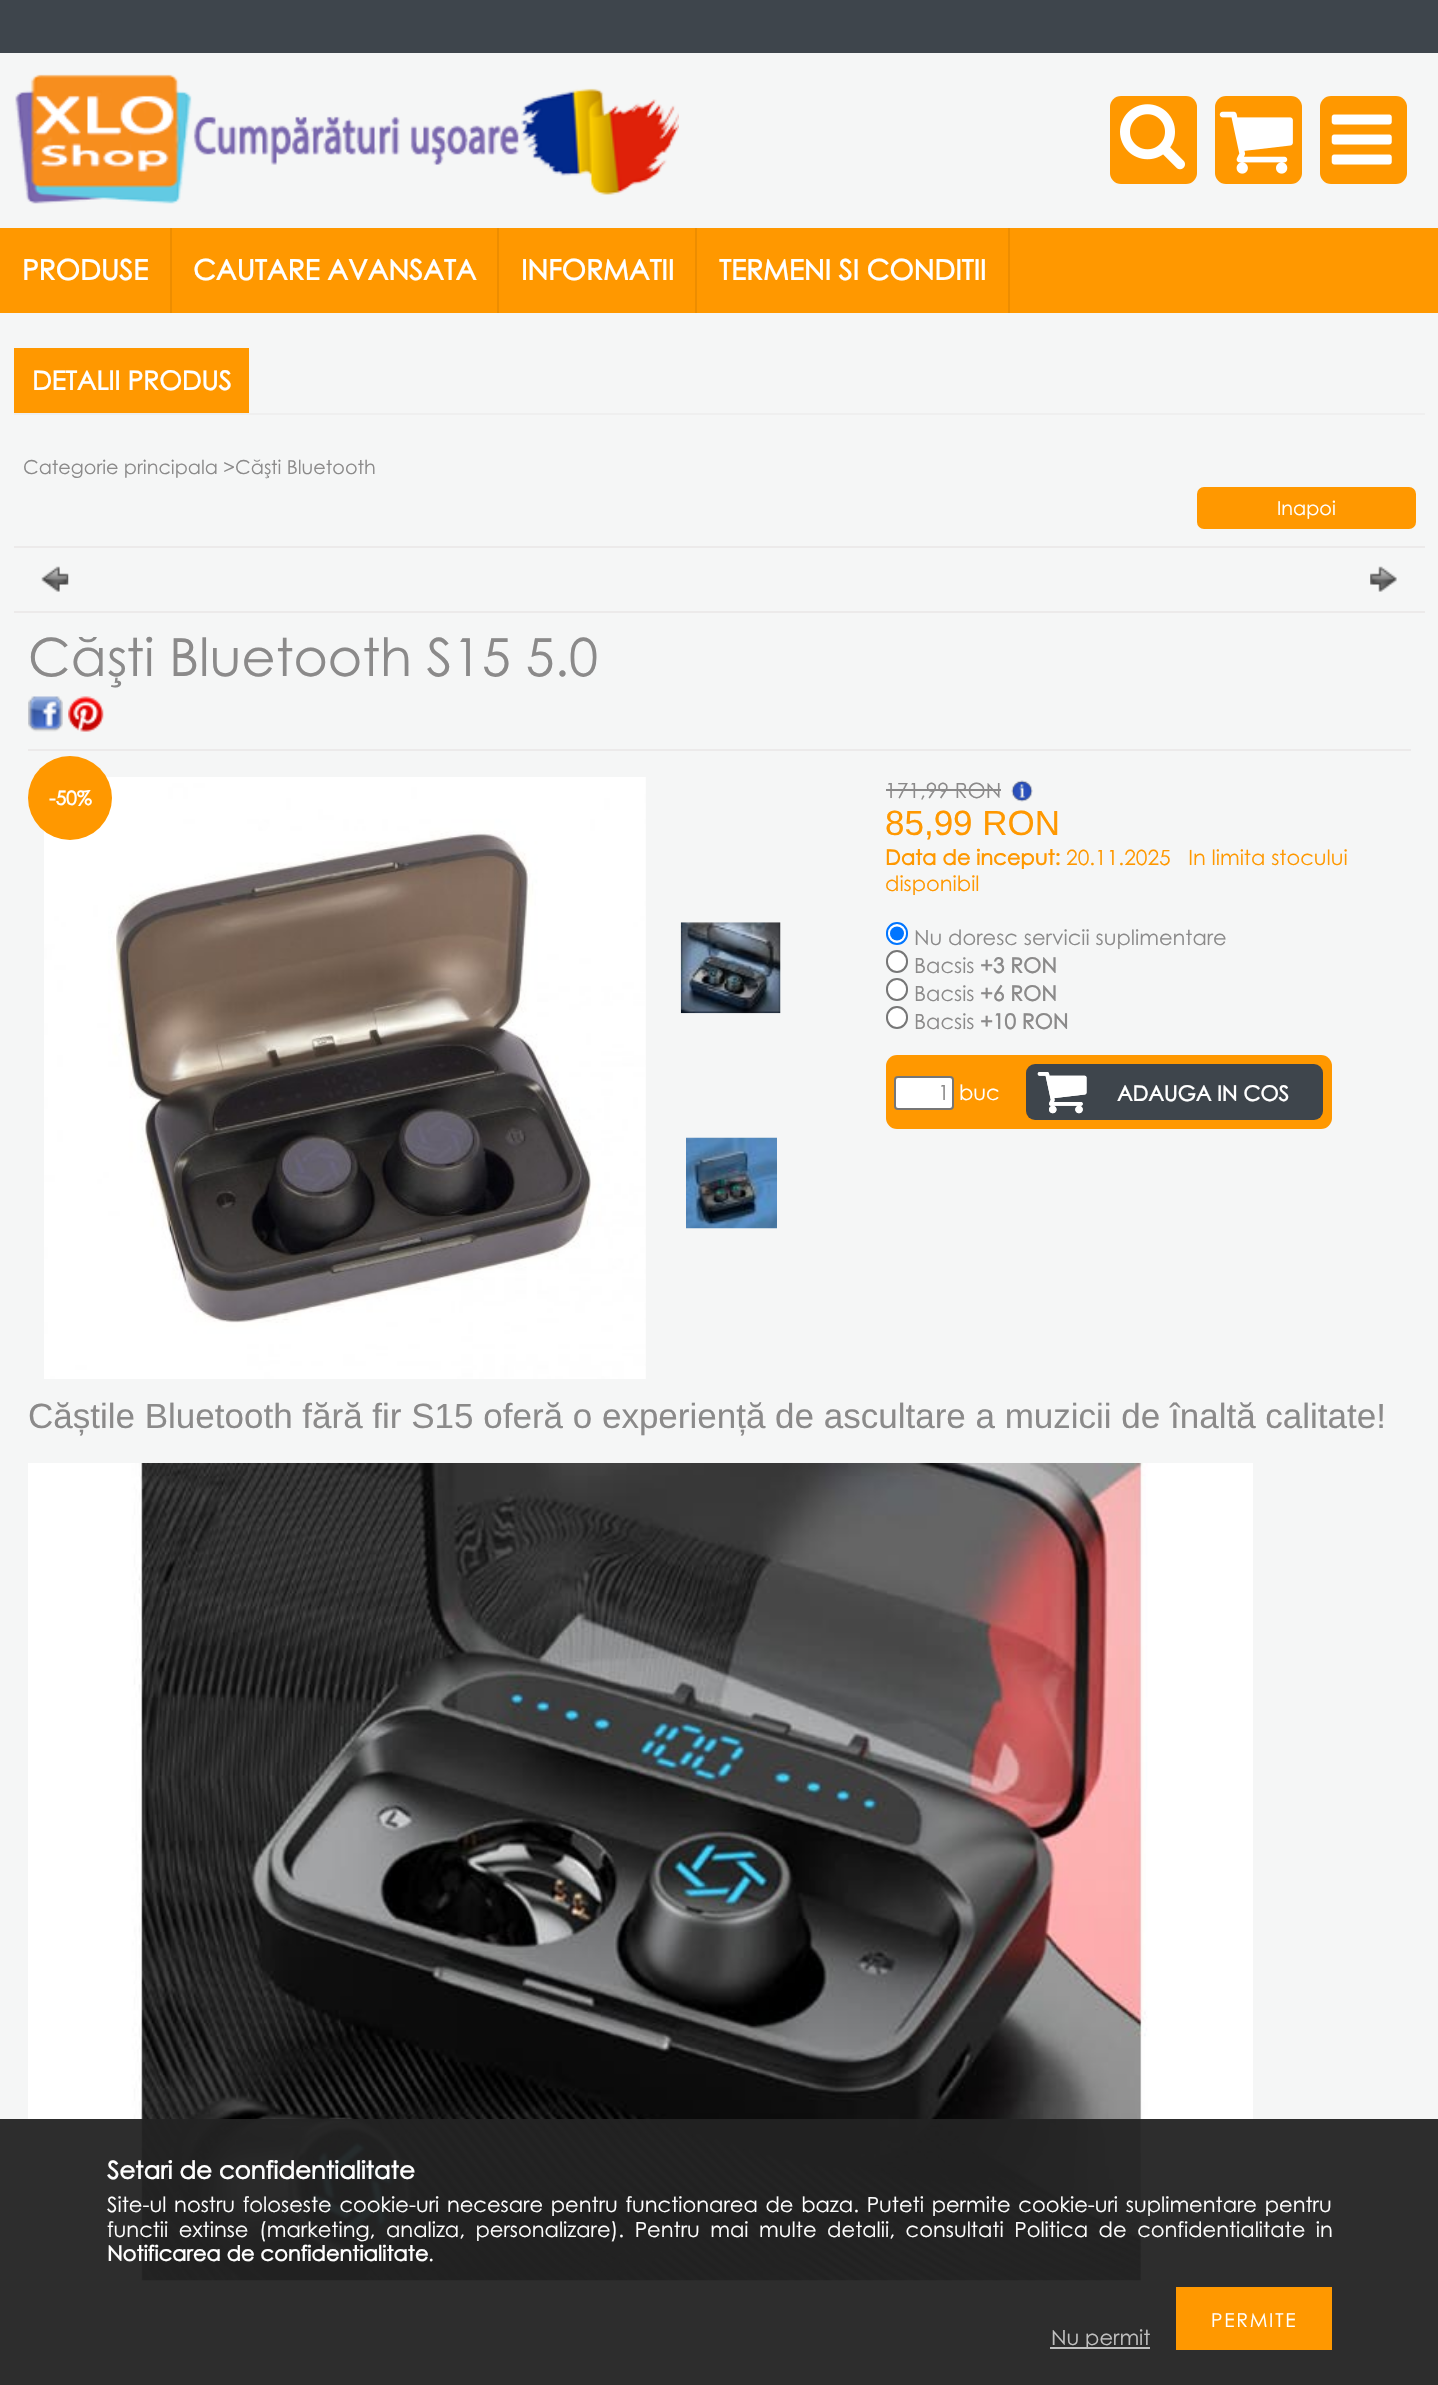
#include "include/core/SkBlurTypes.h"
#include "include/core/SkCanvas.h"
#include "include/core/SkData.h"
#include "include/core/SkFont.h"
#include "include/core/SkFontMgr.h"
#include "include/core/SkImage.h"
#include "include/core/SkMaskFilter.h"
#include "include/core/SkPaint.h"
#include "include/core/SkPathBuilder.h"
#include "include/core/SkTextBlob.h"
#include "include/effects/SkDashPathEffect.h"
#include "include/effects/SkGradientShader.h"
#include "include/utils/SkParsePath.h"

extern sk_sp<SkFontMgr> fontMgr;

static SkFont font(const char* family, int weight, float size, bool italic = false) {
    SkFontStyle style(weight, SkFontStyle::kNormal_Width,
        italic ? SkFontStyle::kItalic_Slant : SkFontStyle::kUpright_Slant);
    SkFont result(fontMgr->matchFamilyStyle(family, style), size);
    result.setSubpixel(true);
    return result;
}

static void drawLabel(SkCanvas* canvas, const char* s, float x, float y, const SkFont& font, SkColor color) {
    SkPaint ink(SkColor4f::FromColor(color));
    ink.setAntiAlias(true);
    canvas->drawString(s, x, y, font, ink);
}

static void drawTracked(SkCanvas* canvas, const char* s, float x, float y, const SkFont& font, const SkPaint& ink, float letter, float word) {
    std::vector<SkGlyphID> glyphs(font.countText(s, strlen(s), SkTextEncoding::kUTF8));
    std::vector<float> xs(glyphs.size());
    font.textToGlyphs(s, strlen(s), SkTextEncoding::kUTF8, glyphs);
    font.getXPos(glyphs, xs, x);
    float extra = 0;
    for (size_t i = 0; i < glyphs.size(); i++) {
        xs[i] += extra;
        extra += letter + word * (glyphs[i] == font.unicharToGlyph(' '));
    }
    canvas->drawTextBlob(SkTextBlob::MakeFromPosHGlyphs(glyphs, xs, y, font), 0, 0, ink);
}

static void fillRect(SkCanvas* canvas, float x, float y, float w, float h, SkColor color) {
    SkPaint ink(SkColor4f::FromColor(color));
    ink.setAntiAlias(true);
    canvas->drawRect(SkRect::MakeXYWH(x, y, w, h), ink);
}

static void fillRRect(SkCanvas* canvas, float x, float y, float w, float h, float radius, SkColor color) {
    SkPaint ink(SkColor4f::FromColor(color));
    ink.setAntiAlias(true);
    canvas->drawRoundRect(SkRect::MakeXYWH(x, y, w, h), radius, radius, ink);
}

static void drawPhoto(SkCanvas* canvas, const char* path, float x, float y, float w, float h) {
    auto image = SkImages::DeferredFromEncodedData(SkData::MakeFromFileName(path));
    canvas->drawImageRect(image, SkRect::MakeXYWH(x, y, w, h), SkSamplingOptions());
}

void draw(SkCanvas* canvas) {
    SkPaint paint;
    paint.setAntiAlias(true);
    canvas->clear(0xFFF5F6F6);
    fillRect(canvas, 0, 0, 1438, 53, 0xFF3E454C);
    drawPhoto(canvas, "assets/img1.png", 15, 74, 664, 130);
    fillRRect(canvas, 1110, 96, 87, 88, 11, 0xFFFF9800);
    drawPhoto(canvas, "assets/img2.png", 1120, 104, 65, 66);
    fillRRect(canvas, 1215, 96, 87, 88, 11, 0xFFFF9800);
    drawPhoto(canvas, "assets/img3.png", 1219, 111, 74, 63);
    fillRRect(canvas, 1320, 96, 87, 88, 11, 0xFFFF9800);
    drawPhoto(canvas, "assets/img4.png", 1331, 114, 61, 51);
    fillRect(canvas, 0, 228, 1438, 85, 0xFFFF9800);
    fillRect(canvas, 170, 228, 2, 85, 0xFFED8D00);
    SkFont font1 = font("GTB", 700, 28);
    drawLabel(canvas, "PRODUSE", 22, 280, font1, 0xFFFFFFFF);
    fillRect(canvas, 497, 228, 2, 85, 0xFFED8D00);
    drawLabel(canvas, "CAUTARE AVANSATA", 193, 280, font1, 0xFFFFFFFF);
    fillRect(canvas, 695, 228, 2, 85, 0xFFED8D00);
    drawLabel(canvas, "INFORMATII", 521, 280, font1, 0xFFFFFFFF);
    fillRect(canvas, 1008, 228, 2, 85, 0xFFED8D00);
    drawLabel(canvas, "TERMENI SI CONDITII", 719, 280, font1, 0xFFFFFFFF);
    fillRect(canvas, 14, 413, 1411, 2, 0xFFEFEFEF);
    fillRect(canvas, 14, 348, 235, 65, 0xFFFF9800);
    SkFont font2 = font("GTB", 700, 26.25f);
    drawLabel(canvas, "DETALII PRODUS", 32, 390, font2, 0xFFFFFFFF);
    SkFont font3 = font("GTB", 400, 19.25f);
    drawLabel(canvas, "Categorie principala >Căști Bluetooth", 23, 474, font3, 0xFF8B8A8A);
    fillRRect(canvas, 1197, 487, 219, 42, 7, 0xFFFF9800);
    drawLabel(canvas, "Inapoi", 1277, 515, font3, 0xFFFFFFFF);
    fillRect(canvas, 14, 546, 1411, 2, 0xFFECEAEA);
    drawPhoto(canvas, "assets/img5.png", 41, 566, 28, 26);
    drawPhoto(canvas, "assets/img6.png", 1370, 566, 27, 26);
    fillRect(canvas, 14, 611, 1411, 2, 0xFFECEAEA);
    fillRect(canvas, 28, 749, 1383, 2, 0xFFECEAEA);
    SkFont font4 = font("GTB", 400, 52.5f);
    drawLabel(canvas, "Căști Bluetooth S15 5.0", 28, 676, font4, 0xFF8B8A8A);
    drawPhoto(canvas, "assets/img7.png", 28, 696, 35, 36);
    drawPhoto(canvas, "assets/img8.png", 68, 696, 36, 36);
    drawPhoto(canvas, "assets/img9.png", 44, 777, 602, 602);
    drawPhoto(canvas, "assets/img10.png", 680, 922, 101, 92);
    drawPhoto(canvas, "assets/img11.png", 686, 1137, 91, 92);
    paint.setColor(0xFFFF9800);
    canvas->drawCircle(70, 798, 42, paint);
    SkFont font5 = font("GTB", 700, 19.25f);
    drawLabel(canvas, "-50%", 49, 805, font5, 0xFFFFFFFF);
    SkFont font6 = font("GTB", 400, 21);
    drawLabel(canvas, "171,99 RON", 885, 798, font6, 0xFF8B8A8A);
    fillRect(canvas, 886, 789, 115, 2, 0xFF8B8A8A);
    drawPhoto(canvas, "assets/img12.png", 1011, 780, 22, 22);
    SkFont font7 = font("Liberation Sans", 400, 35);
    drawLabel(canvas, "85,99 RON", 885, 835, font7, 0xFFFF9800);
    SkFont font8 = font("GTB", 700, 21);
    drawLabel(canvas, "Data de inceput:", 885, 865, font8, 0xFFFF9800);
    drawLabel(canvas, "20.11.2025   In limita stocului", 1066, 865, font6, 0xFFFF9800);
    drawLabel(canvas, "disponibil", 885, 891, font6, 0xFFFF9800);
    paint.setColor(0xFFFFFFFF);
    canvas->drawRoundRect(SkRect::MakeXYWH(887, 923, 20, 21), 10, 10, paint);
    paint.setStroke(true);
    paint.setStrokeWidth(2);
    paint.setColor(0xFF0075FF);
    canvas->drawRoundRect(SkRect::MakeXYWH(887, 923, 20, 21), 10, 10, paint);
    paint.setStroke(false);
    canvas->drawCircle(897, 933.5f, 7, paint);
    drawLabel(canvas, "Nu doresc servicii suplimentare", 914, 945, font6, 0xFF8B8A8A);
    paint.setColor(0xFFFFFFFF);
    canvas->drawRoundRect(SkRect::MakeXYWH(887, 951, 20, 21), 10, 10, paint);
    paint.setStroke(true);
    paint.setColor(0xFF767676);
    canvas->drawRoundRect(SkRect::MakeXYWH(887, 951, 20, 21), 10, 10, paint);
    drawLabel(canvas, "Bacsis", 914, 973, font6, 0xFF8B8A8A);
    drawLabel(canvas, "+3 RON", 980, 973, font8, 0xFF8B8A8A);
    paint.setStroke(false);
    paint.setColor(0xFFFFFFFF);
    canvas->drawRoundRect(SkRect::MakeXYWH(887, 979, 20, 21), 10, 10, paint);
    paint.setStroke(true);
    paint.setColor(0xFF767676);
    canvas->drawRoundRect(SkRect::MakeXYWH(887, 979, 20, 21), 10, 10, paint);
    drawLabel(canvas, "Bacsis", 914, 1001, font6, 0xFF8B8A8A);
    drawLabel(canvas, "+6 RON", 980, 1001, font8, 0xFF8B8A8A);
    paint.setStroke(false);
    paint.setColor(0xFFFFFFFF);
    canvas->drawRoundRect(SkRect::MakeXYWH(887, 1007, 20, 21), 10, 10, paint);
    paint.setStroke(true);
    paint.setColor(0xFF767676);
    canvas->drawRoundRect(SkRect::MakeXYWH(887, 1007, 20, 21), 10, 10, paint);
    drawLabel(canvas, "Bacsis", 914, 1029, font6, 0xFF8B8A8A);
    drawLabel(canvas, "+10 RON", 980, 1029, font8, 0xFF8B8A8A);
    fillRRect(canvas, 886, 1055, 446, 74, 11, 0xFFFF9800);
    paint.setStroke(false);
    paint.setColor(0xFFFFFFFF);
    canvas->drawRoundRect(SkRect::MakeXYWH(895, 1077, 58, 32), 3, 3, paint);
    paint.setStroke(true);
    paint.setColor(0xFF767676);
    canvas->drawRoundRect(SkRect::MakeXYWH(895, 1077, 58, 32), 3, 3, paint);
    drawLabel(canvas, "1", 938, 1100, font6, 0xFF8B8A8A);
    drawLabel(canvas, "buc", 959, 1100, font6, 0xFFFFFFFF);
    fillRRect(canvas, 1026, 1064, 297, 56, 9, 0xFF3E454C);
    drawPhoto(canvas, "assets/img13.png", 1037, 1072, 50, 42);
    drawPhoto(canvas, "assets/img14.png", 1037, 1072, 50, 42);
    drawLabel(canvas, "ADAUGA IN COS", 1117, 1101, font8, 0xFFFFFFFF);
    drawLabel(canvas, "Căștile Bluetooth fără fir S15 oferă o experiență de ascultare a muzicii de înaltă calitate!", 28, 1428, font7, 0xFF8B8A8A);
    drawPhoto(canvas, "assets/img15.png", 28, 1463, 1225, 818);
    fillRect(canvas, 0, 2119, 1438, 266, 0xF2222222);
    SkFont font9 = font("GTB", 700, 24.5f);
    drawLabel(canvas, "Setari de confidentialitate", 107, 2179, font9, 0xFFFFFFFF);
    paint.setStroke(false);
    paint.setColor(0xFFFFFFFF);
    drawTracked(canvas, "Site-ul nostru foloseste cookie-uri necesare pentru functionarea de baza. Puteti permite cookie-uri suplimentare pentru", 107, 2212, font6, paint, 0, 1.9f);
    drawTracked(canvas, "functii extinse (marketing, analiza, personalizare). Pentru mai multe detalii, consultati Politica de confidentialitate in", 107, 2237, font6, paint, 0, 4.75f);
    drawLabel(canvas, "Notificarea de confidentialitate", 107, 2261, font8, 0xFFFFFFFF);
    drawLabel(canvas, ".", 428, 2261, font6, 0xFFFFFFFF);
    fillRect(canvas, 1176, 2287, 156, 63, 0xFFFF9800);
    drawTracked(canvas, "PERMITE", 1211, 2327, font3, paint, 1.75f, 0);
    fillRect(canvas, 1050, 2347, 100, 2, 0xFFC0C0C0);
    drawLabel(canvas, "Nu permit", 1051, 2345, font6, 0xFFC0C0C0);
}
